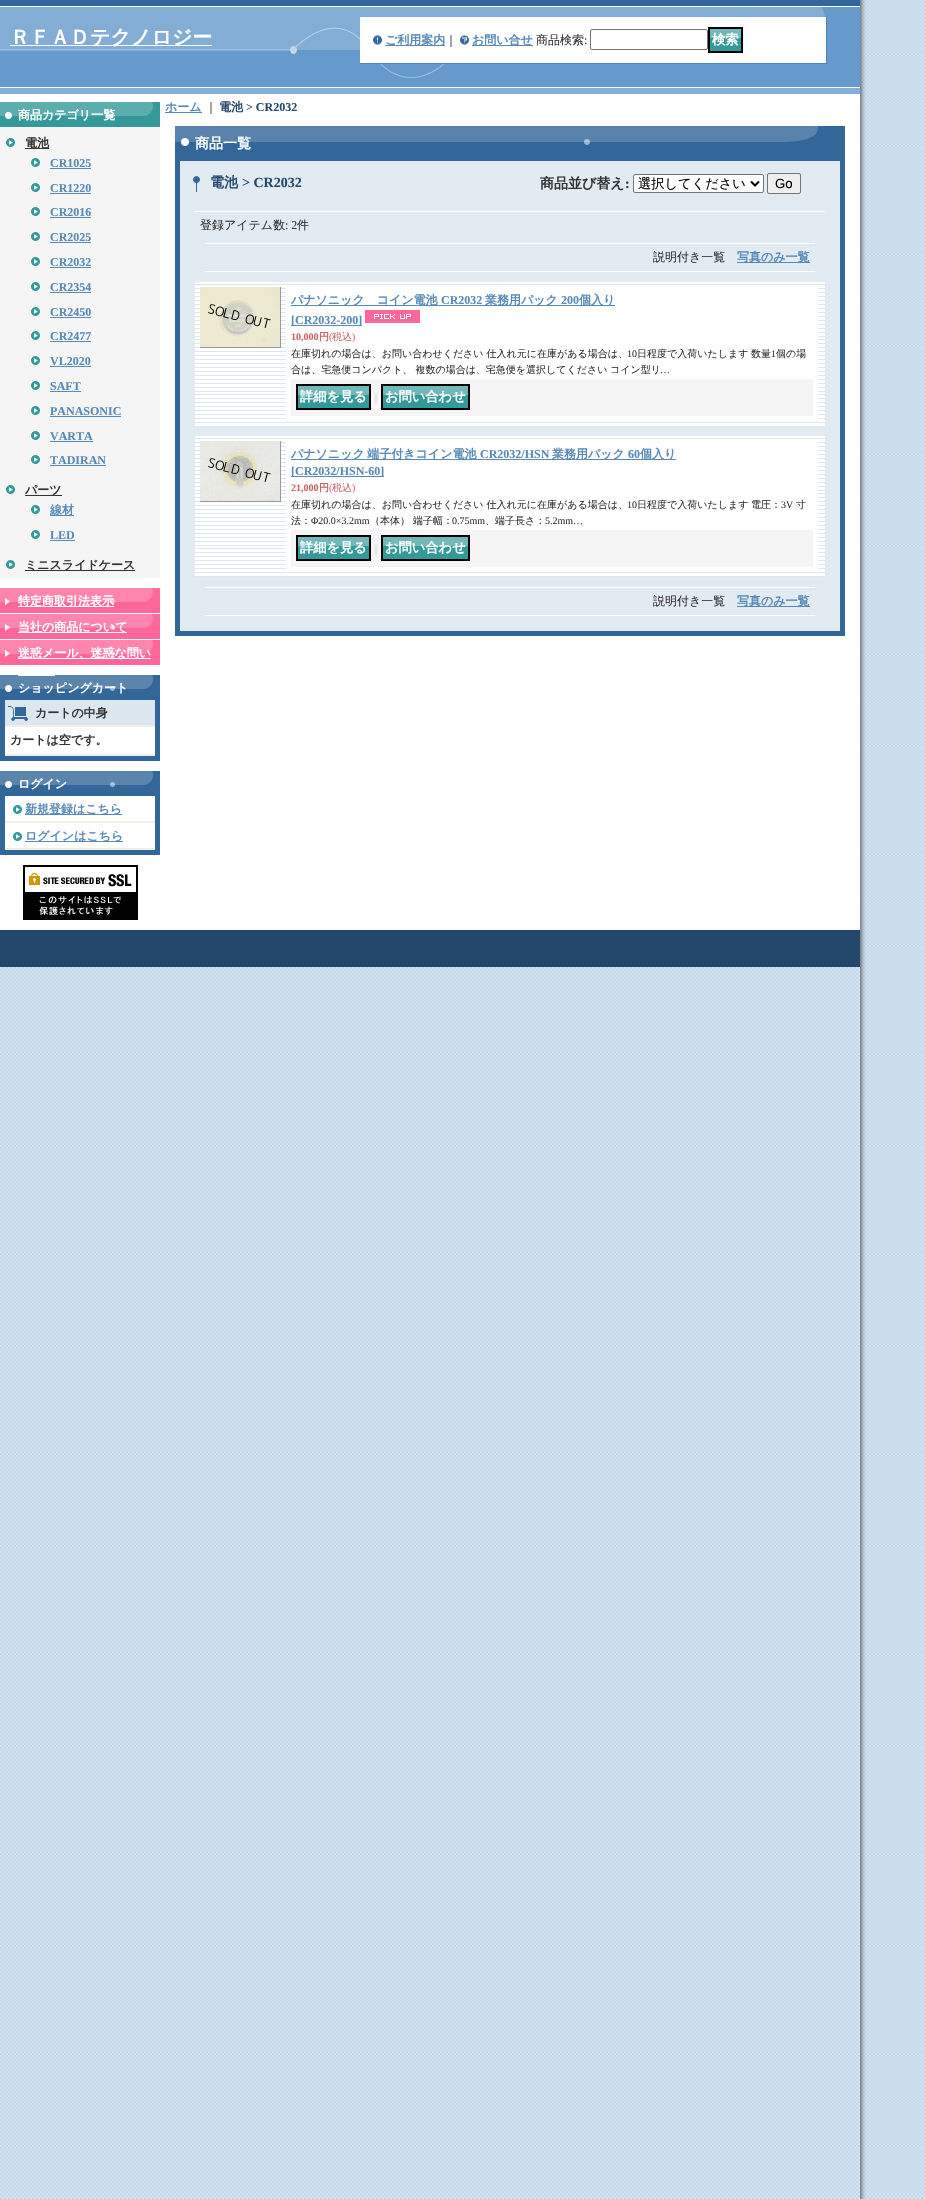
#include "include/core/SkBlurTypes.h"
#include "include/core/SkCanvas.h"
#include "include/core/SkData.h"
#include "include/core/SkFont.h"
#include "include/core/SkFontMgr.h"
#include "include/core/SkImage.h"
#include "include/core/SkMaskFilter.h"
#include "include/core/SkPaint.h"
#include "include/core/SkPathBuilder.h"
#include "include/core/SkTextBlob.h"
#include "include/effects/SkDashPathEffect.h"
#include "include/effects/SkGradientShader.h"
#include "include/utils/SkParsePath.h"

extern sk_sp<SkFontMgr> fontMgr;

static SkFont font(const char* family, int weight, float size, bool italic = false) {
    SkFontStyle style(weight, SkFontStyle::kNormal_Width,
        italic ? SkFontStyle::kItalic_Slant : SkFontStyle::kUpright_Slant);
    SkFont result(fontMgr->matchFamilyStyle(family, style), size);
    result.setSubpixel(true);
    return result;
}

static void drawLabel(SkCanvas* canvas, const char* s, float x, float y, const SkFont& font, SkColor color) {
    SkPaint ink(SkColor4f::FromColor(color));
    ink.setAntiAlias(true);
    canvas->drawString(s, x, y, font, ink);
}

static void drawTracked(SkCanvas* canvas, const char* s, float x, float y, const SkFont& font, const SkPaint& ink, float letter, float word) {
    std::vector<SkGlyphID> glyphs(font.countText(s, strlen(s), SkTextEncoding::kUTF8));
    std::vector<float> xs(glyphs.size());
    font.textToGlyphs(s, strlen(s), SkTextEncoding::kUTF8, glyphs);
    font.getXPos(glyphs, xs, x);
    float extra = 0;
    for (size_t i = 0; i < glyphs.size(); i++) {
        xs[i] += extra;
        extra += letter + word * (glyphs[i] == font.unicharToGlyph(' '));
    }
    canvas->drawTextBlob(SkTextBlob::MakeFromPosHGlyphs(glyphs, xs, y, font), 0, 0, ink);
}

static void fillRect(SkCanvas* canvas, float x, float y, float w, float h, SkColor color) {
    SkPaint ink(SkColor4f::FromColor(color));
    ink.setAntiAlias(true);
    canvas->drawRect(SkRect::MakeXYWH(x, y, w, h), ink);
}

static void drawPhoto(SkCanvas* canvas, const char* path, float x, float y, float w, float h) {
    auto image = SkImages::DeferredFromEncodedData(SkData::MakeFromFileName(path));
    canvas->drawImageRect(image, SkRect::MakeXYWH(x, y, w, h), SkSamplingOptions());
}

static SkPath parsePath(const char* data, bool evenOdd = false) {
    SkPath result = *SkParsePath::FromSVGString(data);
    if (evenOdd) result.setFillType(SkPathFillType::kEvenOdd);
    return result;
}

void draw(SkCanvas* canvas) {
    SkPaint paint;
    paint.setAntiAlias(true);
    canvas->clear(0xFFFFFFFF);
    drawPhoto(canvas, "assets/img1.png", 0, 0, 925, 2199);
    fillRect(canvas, 0, 87, 860, 843, 0xFFFFFFFF);
    fillRect(canvas, 0, 0, 860, 6, 0xFF336699);
    fillRect(canvas, 0, 6, 860, 1, 0xFFFFFFFF);
    drawPhoto(canvas, "assets/img2.png", 0, 7, 860, 80);
    fillRect(canvas, 10, 45, 202, 1, 0xFFFFFFFF);
    SkFont font1 = font("WenQuanYi Zen Hei", 700, 20);
    drawLabel(canvas, "ＲＦＡＤテクノロジー", 10, 44, font1, 0xFFFFFFFF);
    fillRect(canvas, 360, 17, 466, 46, 0xFFFFFFFF);
    fillRect(canvas, 826, 17, 1, 47, 0xFF5185B4);
    fillRect(canvas, 360, 63, 467, 1, 0xFF5185B4);
    drawPhoto(canvas, "assets/img3.png", 373, 35, 9, 10);
    fillRect(canvas, 385, 45, 60, 1, 0xFF588AB7);
    SkFont font2 = font("WenQuanYi Zen Hei", 700, 12);
    drawLabel(canvas, "ご利用案内", 385, 44, font2, 0xFF588AB7);
    SkFont font3 = font("WenQuanYi Zen Hei", 500, 12);
    drawLabel(canvas, "｜", 445, 44, font3, 0xFF333333);
    drawPhoto(canvas, "assets/img4.png", 460, 35, 9, 10);
    fillRect(canvas, 472, 45, 61, 1, 0xFF588AB7);
    drawLabel(canvas, "お問い合せ", 472, 44, font2, 0xFF588AB7);
    drawLabel(canvas, "商品検索", 536, 44, font3, 0xFF333333);
    SkFont font4 = font("Liberation Serif", 400, 12);
    drawLabel(canvas, ":", 584, 44, font4, 0xFF333333);
    paint.setStroke(true);
    paint.setStrokeWidth(1);
    paint.setColor(0xFF767676);
    canvas->drawRoundRect(SkRect::MakeXYWH(590.5f, 29.5f, 117, 20), 1.5f, 1.5f, paint);
    drawPhoto(canvas, "assets/img5.png", 710, 29, 31, 22);
    paint.setStrokeWidth(2);
    paint.setColor(0xFF000000);
    canvas->drawRect(SkRect::MakeXYWH(709, 28, 33, 24), paint);
    SkFont font5 = font("WenQuanYi Zen Hei", 700, 13.25f);
    drawLabel(canvas, "検索", 712, 44, font5, 0xFFFFFFFF);
    fillRect(canvas, 0, 88, 860, 6, 0xFF88AFD7);
    drawPhoto(canvas, "assets/img6.png", 0, 102, 160, 25);
    drawLabel(canvas, "商品カテゴリ一覧", 18, 119, font2, 0xFFFFFFFF);
    fillRect(canvas, 0, 127, 160, 451, 0xFFF5F5F5);
    drawPhoto(canvas, "assets/img7.png", 6, 138, 9, 9);
    fillRect(canvas, 25, 148, 24, 1, 0xFF333333);
    drawLabel(canvas, "電池", 25, 147, font2, 0xFF333333);
    drawPhoto(canvas, "assets/img7.png", 31, 158, 9, 9);
    SkFont font6 = font("Liberation Serif", 700, 12);
    drawLabel(canvas, "CR1025", 50, 167, font6, 0xFF588AB7);
    fillRect(canvas, 50, 168, 41, 1, 0xFF588AB7);
    drawPhoto(canvas, "assets/img7.png", 31, 183, 9, 9);
    drawLabel(canvas, "CR1220", 50, 192, font6, 0xFF588AB7);
    fillRect(canvas, 50, 193, 41, 1, 0xFF588AB7);
    drawPhoto(canvas, "assets/img7.png", 31, 207, 9, 9);
    drawLabel(canvas, "CR2016", 50, 216, font6, 0xFF588AB7);
    fillRect(canvas, 50, 217, 41, 1, 0xFF588AB7);
    drawPhoto(canvas, "assets/img7.png", 31, 232, 9, 9);
    drawLabel(canvas, "CR2025", 50, 241, font6, 0xFF588AB7);
    fillRect(canvas, 50, 242, 41, 1, 0xFF588AB7);
    drawPhoto(canvas, "assets/img7.png", 31, 257, 9, 9);
    drawLabel(canvas, "CR2032", 50, 266, font6, 0xFF588AB7);
    fillRect(canvas, 50, 267, 41, 1, 0xFF588AB7);
    drawPhoto(canvas, "assets/img7.png", 31, 282, 9, 9);
    drawLabel(canvas, "CR2354", 50, 291, font6, 0xFF588AB7);
    fillRect(canvas, 50, 292, 41, 1, 0xFF588AB7);
    drawPhoto(canvas, "assets/img7.png", 31, 307, 9, 9);
    drawLabel(canvas, "CR2450", 50, 316, font6, 0xFF588AB7);
    fillRect(canvas, 50, 317, 41, 1, 0xFF588AB7);
    drawPhoto(canvas, "assets/img7.png", 31, 331, 9, 9);
    drawLabel(canvas, "CR2477", 50, 340, font6, 0xFF588AB7);
    fillRect(canvas, 50, 341, 41, 1, 0xFF588AB7);
    drawPhoto(canvas, "assets/img7.png", 31, 356, 9, 9);
    drawLabel(canvas, "VL2020", 50, 365, font6, 0xFF588AB7);
    fillRect(canvas, 50, 366, 41, 1, 0xFF588AB7);
    drawPhoto(canvas, "assets/img7.png", 31, 381, 9, 9);
    drawLabel(canvas, "SAFT", 50, 390, font6, 0xFF588AB7);
    fillRect(canvas, 50, 391, 31, 1, 0xFF588AB7);
    drawPhoto(canvas, "assets/img7.png", 31, 406, 9, 9);
    drawLabel(canvas, "PANASONIC", 50, 415, font6, 0xFF588AB7);
    fillRect(canvas, 50, 416, 71, 1, 0xFF588AB7);
    drawPhoto(canvas, "assets/img7.png", 31, 431, 9, 9);
    drawLabel(canvas, "VARTA", 50, 440, font6, 0xFF588AB7);
    fillRect(canvas, 50, 441, 43, 1, 0xFF588AB7);
    drawPhoto(canvas, "assets/img7.png", 31, 455, 9, 9);
    drawLabel(canvas, "TADIRAN", 50, 464, font6, 0xFF588AB7);
    fillRect(canvas, 50, 465, 56, 1, 0xFF588AB7);
    drawPhoto(canvas, "assets/img7.png", 6, 485, 9, 9);
    fillRect(canvas, 25, 495, 37, 1, 0xFF333333);
    drawLabel(canvas, "パーツ", 25, 494, font2, 0xFF333333);
    drawPhoto(canvas, "assets/img7.png", 31, 505, 9, 9);
    fillRect(canvas, 50, 515, 24, 1, 0xFF588AB7);
    drawLabel(canvas, "線材", 50, 514, font2, 0xFF588AB7);
    drawPhoto(canvas, "assets/img7.png", 31, 530, 9, 9);
    drawLabel(canvas, "LED", 50, 539, font6, 0xFF588AB7);
    fillRect(canvas, 50, 540, 25, 1, 0xFF588AB7);
    drawPhoto(canvas, "assets/img7.png", 6, 560, 9, 9);
    fillRect(canvas, 25, 570, 110, 1, 0xFF333333);
    drawLabel(canvas, "ミニスライドケース", 25, 569, font2, 0xFF333333);
    drawPhoto(canvas, "assets/img8.png", 0, 588, 160, 25);
    fillRect(canvas, 18, 606, 96, 1, 0xFFFFFFFF);
    drawLabel(canvas, "特定商取引法表示", 18, 605, font2, 0xFFFFFFFF);
    drawPhoto(canvas, "assets/img8.png", 0, 614, 160, 25);
    fillRect(canvas, 18, 632, 109, 1, 0xFFFFFFFF);
    drawLabel(canvas, "当社の商品について", 18, 631, font2, 0xFFFFFFFF);
    drawPhoto(canvas, "assets/img8.png", 0, 640, 160, 25);
    fillRect(canvas, 18, 658, 133, 1, 0xFFFFFFFF);
    drawLabel(canvas, "迷惑メール、迷惑な問い", 18, 657, font2, 0xFFFFFFFF);
    drawPhoto(canvas, "assets/img9.png", 0, 675, 160, 25);
    fillRect(canvas, 18, 675, 37, 1, 0xFFFFFFFF);
    drawLabel(canvas, "ショッピングカート", 18, 692, font2, 0xFFFFFFFF);
    fillRect(canvas, 5, 700, 150, 25, 0xFFDDE7F0);
    fillRect(canvas, 155, 700, 5, 61, 0xFF336699);
    fillRect(canvas, 0, 756, 160, 5, 0xFF336699);
    fillRect(canvas, 0, 700, 5, 61, 0xFF336699);
    drawPhoto(canvas, "assets/img10.png", 8, 706, 20, 15);
    fillRect(canvas, 5, 725, 150, 2, 0xFFF0F1E4);
    drawLabel(canvas, "カートの中身", 35, 717, font2, 0xFF333333);
    fillRect(canvas, 5, 754, 150, 2, 0xFFF0F1E4);
    drawLabel(canvas, "カートは空です。", 10, 744, font2, 0xFF333333);
    drawPhoto(canvas, "assets/img9.png", 0, 771, 160, 25);
    drawLabel(canvas, "ログイン", 18, 788, font2, 0xFFFFFFFF);
    fillRect(canvas, 155, 796, 5, 59, 0xFF336699);
    fillRect(canvas, 0, 850, 160, 5, 0xFF336699);
    fillRect(canvas, 0, 796, 5, 59, 0xFF336699);
    fillRect(canvas, 5, 821, 150, 2, 0xFFF0F1E4);
    drawPhoto(canvas, "assets/img11.png", 13, 805, 9, 9);
    fillRect(canvas, 25, 814, 97, 1, 0xFF588AB7);
    drawLabel(canvas, "新規登録はこちら", 25, 813, font2, 0xFF588AB7);
    fillRect(canvas, 5, 848, 150, 2, 0xFFF0F1E4);
    drawPhoto(canvas, "assets/img11.png", 13, 832, 9, 9);
    fillRect(canvas, 25, 841, 98, 1, 0xFF588AB7);
    drawLabel(canvas, "ログインはこちら", 25, 840, font2, 0xFF588AB7);
    drawPhoto(canvas, "assets/img12.png", 23, 865, 115, 55);
    fillRect(canvas, 165, 112, 37, 1, 0xFF588AB7);
    drawLabel(canvas, "ホーム", 165, 111, font2, 0xFF588AB7);
    drawLabel(canvas, "｜", 205, 111, font3, 0xFF333333);
    drawLabel(canvas, "電池", 219, 111, font2, 0xFF24486C);
    drawLabel(canvas, "> CR2032", 246, 111, font6, 0xFF24486C);
    drawPhoto(canvas, "assets/img13.png", 175, 126, 670, 35);
    SkFont font7 = font("WenQuanYi Zen Hei", 700, 14);
    drawLabel(canvas, "商品一覧", 195, 148, font7, 0xFFFFFFFF);
    fillRect(canvas, 180, 161, 660, 470, 0xFFE3EBF2);
    fillRect(canvas, 840, 161, 5, 475, 0xFF336699);
    fillRect(canvas, 175, 161, 5, 460, 0xFF336699);
    drawPhoto(canvas, "assets/img14.png", 193, 176, 7, 16);
    drawLabel(canvas, "電池", 210, 187, font7, 0xFF24486C);
    SkFont font8 = font("Liberation Serif", 700, 14);
    drawLabel(canvas, "> CR2032", 242, 187, font8, 0xFF24486C);
    drawLabel(canvas, "商品並び替え", 540, 188, font7, 0xFF333333);
    drawLabel(canvas, ":", 625, 188, font8, 0xFF333333);
    paint.setStroke(false);
    paint.setColor(0xFFFFFFFF);
    canvas->drawRoundRect(SkRect::MakeXYWH(633.5f, 174.5f, 130, 18), 1.5f, 1.5f, paint);
    paint.setStroke(true);
    paint.setStrokeWidth(1);
    paint.setColor(0xFF767676);
    canvas->drawRoundRect(SkRect::MakeXYWH(633.5f, 174.5f, 130, 18), 1.5f, 1.5f, paint);
    paint.setStrokeWidth(2);
    paint.setColor(0xFF000000);
    canvas->drawPath(parsePath("M751 181.5L755 185.5L759 181.5"), paint);
    SkFont font9 = font("WenQuanYi Zen Hei", 500, 13.25f);
    drawLabel(canvas, "選択してください", 638, 188, font9, 0xFF000000);
    paint.setStroke(false);
    paint.setColor(0xFFEFEFEF);
    canvas->drawRoundRect(SkRect::MakeXYWH(767.5f, 173.5f, 33, 20), 1.5f, 1.5f, paint);
    paint.setStroke(true);
    paint.setStrokeWidth(1);
    paint.setColor(0xFF767676);
    canvas->drawRoundRect(SkRect::MakeXYWH(767.5f, 173.5f, 33, 20), 1.5f, 1.5f, paint);
    SkFont font10 = font("Liberation Sans", 400, 13.25f);
    drawLabel(canvas, "Go", 775, 188, font10, 0xFF000000);
    fillRect(canvas, 195, 211, 630, 1, 0xFFFFFFFF);
    drawLabel(canvas, "登録アイテム数", 200, 229, font3, 0xFF333333);
    drawLabel(canvas, ": 2", 285, 229, font4, 0xFF333333);
    drawLabel(canvas, "件", 297, 229, font3, 0xFF333333);
    fillRect(canvas, 205, 243, 610, 1, 0xFFFFFFFF);
    fillRect(canvas, 205, 271, 610, 1, 0xFFFFFFFF);
    drawLabel(canvas, "説明付き一覧", 653, 261, font3, 0xFF333333);
    fillRect(canvas, 737, 262, 73, 1, 0xFF588AB7);
    drawLabel(canvas, "写真のみ一覧", 737, 261, font2, 0xFF588AB7);
    drawPhoto(canvas, "assets/img15.png", 195, 282, 630, 144);
    fillRect(canvas, 280, 287, 1, 61, 0xFF999999);
    fillRect(canvas, 200, 347, 81, 1, 0xFF999999);
    drawPhoto(canvas, "assets/img16.png", 200, 287, 80, 60);
    fillRect(canvas, 286, 288, 532, 131, 0xFFFFFFFF);
    fillRect(canvas, 291, 305, 324, 1, 0xFF588AB7);
    drawLabel(canvas, "パナソニック　コイン電池", 291, 304, font2, 0xFF588AB7);
    drawLabel(canvas, "CR2032", 441, 304, font6, 0xFF588AB7);
    drawLabel(canvas, "業務用パック", 485, 304, font2, 0xFF588AB7);
    drawLabel(canvas, "200", 561, 304, font6, 0xFF588AB7);
    drawLabel(canvas, "個入り", 579, 304, font2, 0xFF588AB7);
    fillRect(canvas, 291, 325, 71, 1, 0xFF588AB7);
    drawLabel(canvas, "[CR2032-200]", 291, 324, font6, 0xFF588AB7);
    drawPhoto(canvas, "assets/img17.png", 365, 310, 55, 13);
    SkFont font11 = font("Liberation Serif", 700, 10);
    drawLabel(canvas, "10,000", 291, 340, font11, 0xFFCC6666);
    SkFont font12 = font("WenQuanYi Zen Hei", 700, 10);
    drawLabel(canvas, "円", 319, 340, font12, 0xFFCC6666);
    SkFont font13 = font("Liberation Serif", 400, 10);
    drawLabel(canvas, "(", 329, 340, font13, 0xFFCC6666);
    SkFont font14 = font("WenQuanYi Zen Hei", 500, 10);
    drawLabel(canvas, "税込", 332, 340, font14, 0xFFCC6666);
    drawLabel(canvas, ")", 352, 340, font13, 0xFFCC6666);
    drawLabel(canvas, "在庫切れの場合は、お問い合わせください 仕入れ元に在庫がある場合は、", 291, 357, font14, 0xFF333333);
    drawLabel(canvas, "10", 627, 357, font13, 0xFF333333);
    drawLabel(canvas, "日程度で入荷いたします", 637, 357, font14, 0xFF333333);
    drawLabel(canvas, "数量", 751, 357, font14, 0xFF333333);
    drawLabel(canvas, "1", 771, 357, font13, 0xFF333333);
    drawLabel(canvas, "個の場", 776, 357, font14, 0xFF333333);
    drawLabel(canvas, "合は、宅急便コンパクト、 複数の場合は、宅急便を選択してください", 291, 373, font14, 0xFF333333);
    drawLabel(canvas, "コイン型リ", 610, 373, font14, 0xFF333333);
    drawLabel(canvas, "…", 660, 373, font13, 0xFF333333);
    fillRect(canvas, 291, 379, 522, 37, 0xFFF5F5F5);
    drawPhoto(canvas, "assets/img18.png", 298, 386, 71, 22);
    paint.setStrokeWidth(2);
    paint.setColor(0xFF000000);
    canvas->drawRect(SkRect::MakeXYWH(297, 385, 73, 24), paint);
    drawLabel(canvas, "詳細を見る", 300, 401, font5, 0xFFFFFFFF);
    drawLabel(canvas, "｜", 371, 401, font14, 0xFFCCCCCC);
    drawPhoto(canvas, "assets/img19.png", 383, 386, 85, 22);
    canvas->drawRect(SkRect::MakeXYWH(382, 385, 87, 24), paint);
    drawLabel(canvas, "お問い合わせ", 385, 401, font5, 0xFFFFFFFF);
    drawPhoto(canvas, "assets/img20.png", 195, 436, 630, 141);
    fillRect(canvas, 280, 441, 1, 61, 0xFF999999);
    fillRect(canvas, 200, 501, 81, 1, 0xFF999999);
    drawPhoto(canvas, "assets/img21.png", 200, 441, 80, 60);
    fillRect(canvas, 286, 442, 532, 127, 0xFFFFFFFF);
    fillRect(canvas, 291, 459, 385, 1, 0xFF588AB7);
    paint.setStroke(false);
    paint.setColor(0xFF588AB7);
    drawTracked(canvas, "パナソニック 端子付きコイン電池", 291, 458, font2, paint, 0, -1);
    drawLabel(canvas, "CR2032/HSN", 480, 458, font6, 0xFF588AB7);
    drawLabel(canvas, "業務用パック", 552, 458, font2, 0xFF588AB7);
    drawLabel(canvas, "60", 628, 458, font6, 0xFF588AB7);
    drawLabel(canvas, "個入り", 640, 458, font2, 0xFF588AB7);
    fillRect(canvas, 291, 476, 93, 1, 0xFF588AB7);
    drawLabel(canvas, "[CR2032/HSN-60]", 291, 475, font6, 0xFF588AB7);
    drawLabel(canvas, "21,000", 291, 491, font11, 0xFFCC6666);
    drawLabel(canvas, "円", 319, 491, font12, 0xFFCC6666);
    drawLabel(canvas, "(", 329, 491, font13, 0xFFCC6666);
    drawLabel(canvas, "税込", 332, 491, font14, 0xFFCC6666);
    drawLabel(canvas, ")", 352, 491, font13, 0xFFCC6666);
    drawLabel(canvas, "在庫切れの場合は、お問い合わせください 仕入れ元に在庫がある場合は、", 291, 508, font14, 0xFF333333);
    drawLabel(canvas, "10", 627, 508, font13, 0xFF333333);
    drawLabel(canvas, "日程度で入荷いたします", 637, 508, font14, 0xFF333333);
    drawLabel(canvas, "電圧：", 751, 508, font14, 0xFF333333);
    drawLabel(canvas, "3V", 781, 508, font13, 0xFF333333);
    drawLabel(canvas, "寸", 796, 508, font14, 0xFF333333);
    drawLabel(canvas, "法：", 291, 524, font14, 0xFF333333);
    drawLabel(canvas, "Φ20.0×3.2mm", 311, 524, font13, 0xFF333333);
    drawLabel(canvas, "（本体） 端子幅：", 370, 524, font14, 0xFF333333);
    drawLabel(canvas, "0.75mm", 452, 524, font13, 0xFF333333);
    drawLabel(canvas, "、端子長さ：", 485, 524, font14, 0xFF333333);
    drawLabel(canvas, "5.2mm…", 545, 524, font13, 0xFF333333);
    fillRect(canvas, 291, 530, 522, 37, 0xFFF5F5F5);
    drawPhoto(canvas, "assets/img18.png", 298, 537, 71, 22);
    paint.setStroke(true);
    paint.setColor(0xFF000000);
    canvas->drawRect(SkRect::MakeXYWH(297, 536, 73, 24), paint);
    drawLabel(canvas, "詳細を見る", 300, 552, font5, 0xFFFFFFFF);
    drawLabel(canvas, "｜", 371, 552, font14, 0xFFCCCCCC);
    drawPhoto(canvas, "assets/img19.png", 383, 537, 85, 22);
    canvas->drawRect(SkRect::MakeXYWH(382, 536, 87, 24), paint);
    drawLabel(canvas, "お問い合わせ", 385, 552, font5, 0xFFFFFFFF);
    fillRect(canvas, 205, 587, 610, 1, 0xFFFFFFFF);
    fillRect(canvas, 205, 615, 610, 1, 0xFFFFFFFF);
    drawLabel(canvas, "説明付き一覧", 653, 605, font3, 0xFF333333);
    fillRect(canvas, 737, 606, 73, 1, 0xFF588AB7);
    drawLabel(canvas, "写真のみ一覧", 737, 605, font2, 0xFF588AB7);
    fillRect(canvas, 175, 631, 670, 5, 0xFF336699);
    fillRect(canvas, 175, 621, 5, 15, 0xFF336699);
    fillRect(canvas, 0, 930, 860, 37, 0xFF24486C);
}
